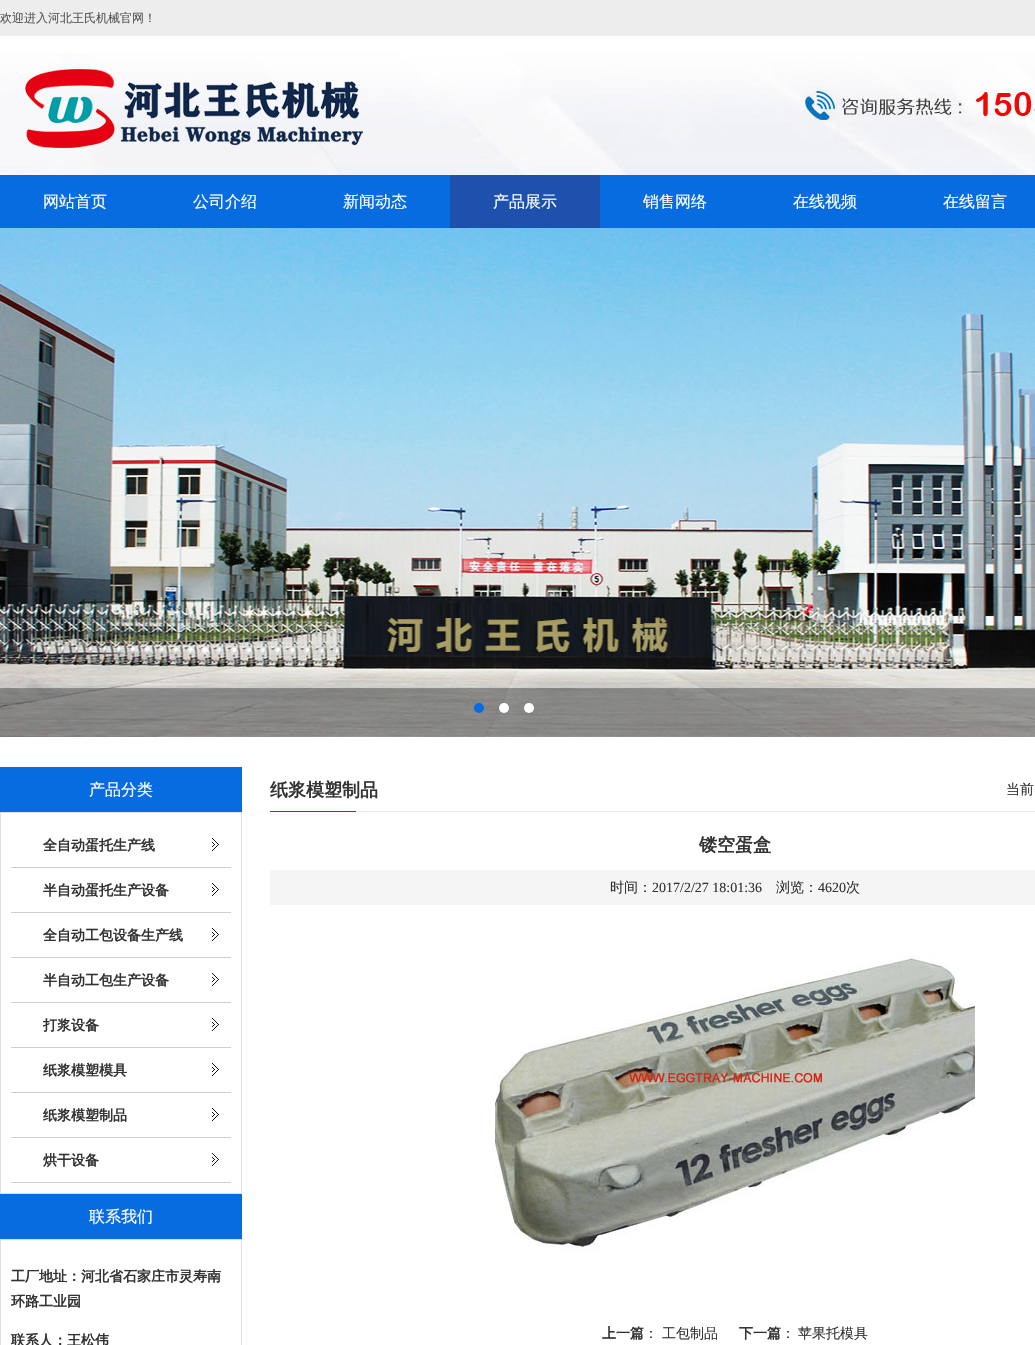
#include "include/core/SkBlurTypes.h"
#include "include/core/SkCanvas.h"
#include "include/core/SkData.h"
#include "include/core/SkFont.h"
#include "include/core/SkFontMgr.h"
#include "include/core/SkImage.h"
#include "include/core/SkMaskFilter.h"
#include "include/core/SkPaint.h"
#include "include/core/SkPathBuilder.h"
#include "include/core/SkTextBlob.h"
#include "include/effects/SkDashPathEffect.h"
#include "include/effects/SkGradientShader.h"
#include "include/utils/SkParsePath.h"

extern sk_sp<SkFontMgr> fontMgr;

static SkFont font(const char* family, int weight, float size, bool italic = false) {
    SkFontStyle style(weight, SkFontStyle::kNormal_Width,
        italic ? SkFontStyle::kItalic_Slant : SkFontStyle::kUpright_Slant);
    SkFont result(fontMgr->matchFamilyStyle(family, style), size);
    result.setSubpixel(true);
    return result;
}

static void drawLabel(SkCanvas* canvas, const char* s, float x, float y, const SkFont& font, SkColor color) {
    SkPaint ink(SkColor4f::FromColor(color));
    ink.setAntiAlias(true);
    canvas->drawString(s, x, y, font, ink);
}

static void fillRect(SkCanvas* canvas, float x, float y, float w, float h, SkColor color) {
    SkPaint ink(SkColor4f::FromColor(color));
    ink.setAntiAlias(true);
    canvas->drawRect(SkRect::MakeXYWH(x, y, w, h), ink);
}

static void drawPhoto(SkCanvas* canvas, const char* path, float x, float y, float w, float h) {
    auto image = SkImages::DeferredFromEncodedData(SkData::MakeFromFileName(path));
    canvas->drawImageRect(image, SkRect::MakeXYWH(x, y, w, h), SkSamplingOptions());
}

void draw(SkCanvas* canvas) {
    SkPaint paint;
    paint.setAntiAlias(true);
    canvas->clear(0xFFFFFFFF);
    fillRect(canvas, 0, 0, 1035, 36, 0xFFEDEDED);
    SkFont font1 = font("WenQuanYi Zen Hei", 500, 12);
    drawLabel(canvas, "欢迎进入河北王氏机械官网！", 0, 22, font1, 0xFF565656);
    drawPhoto(canvas, "assets/img1.png", 0, 52, 1035, 123);
    fillRect(canvas, 0, 175, 1035, 53, 0xFF076CE0);
    SkFont font2 = font("WenQuanYi Zen Hei", 500, 16);
    drawLabel(canvas, "网站首页", 43, 207, font2, 0xFFFFFFFF);
    drawLabel(canvas, "公司介绍", 193, 207, font2, 0xFFFFFFFF);
    drawLabel(canvas, "新闻动态", 343, 207, font2, 0xFFFFFFFF);
    fillRect(canvas, 450, 175, 150, 53, 0xFF1E50AE);
    drawLabel(canvas, "产品展示", 493, 207, font2, 0xFFFFFFFF);
    drawLabel(canvas, "销售网络", 643, 207, font2, 0xFFFFFFFF);
    drawLabel(canvas, "在线视频", 793, 207, font2, 0xFFFFFFFF);
    drawLabel(canvas, "在线留言", 943, 207, font2, 0xFFFFFFFF);
    drawPhoto(canvas, "assets/img2.png", 0, 228, 1035, 509);
    fillRect(canvas, 0, 767, 242, 45, 0xFF076CE0);
    drawLabel(canvas, "产品分类", 89, 795, font2, 0xFFFFFFFF);
    fillRect(canvas, 0, 812, 242, 382, 0xFFDEDEDE);
    fillRect(canvas, 1, 813, 240, 380, 0xFFFFFFFF);
    drawPhoto(canvas, "assets/img3.png", 11, 835, 220, 33);
    SkFont font3 = font("WenQuanYi Zen Hei", 700, 14);
    drawLabel(canvas, "全自动蛋托生产线", 43, 850, font3, 0xFF333333);
    drawPhoto(canvas, "assets/img3.png", 11, 880, 220, 33);
    drawLabel(canvas, "半自动蛋托生产设备", 43, 895, font3, 0xFF333333);
    drawPhoto(canvas, "assets/img3.png", 11, 925, 220, 33);
    drawLabel(canvas, "全自动工包设备生产线", 43, 940, font3, 0xFF333333);
    drawPhoto(canvas, "assets/img3.png", 11, 970, 220, 33);
    drawLabel(canvas, "半自动工包生产设备", 43, 985, font3, 0xFF333333);
    drawPhoto(canvas, "assets/img3.png", 11, 1015, 220, 33);
    drawLabel(canvas, "打浆设备", 43, 1030, font3, 0xFF333333);
    drawPhoto(canvas, "assets/img3.png", 11, 1060, 220, 33);
    drawLabel(canvas, "纸浆模塑模具", 43, 1075, font3, 0xFF333333);
    drawPhoto(canvas, "assets/img3.png", 11, 1105, 220, 33);
    drawLabel(canvas, "纸浆模塑制品", 43, 1120, font3, 0xFF333333);
    drawPhoto(canvas, "assets/img3.png", 11, 1150, 220, 33);
    drawLabel(canvas, "烘干设备", 43, 1165, font3, 0xFF333333);
    fillRect(canvas, 0, 1194, 242, 45, 0xFF076CE0);
    drawLabel(canvas, "联系我们", 89, 1222, font2, 0xFFFFFFFF);
    fillRect(canvas, 0, 1239, 242, 106, 0xFFDEDEDE);
    fillRect(canvas, 1, 1240, 240, 105, 0xFFFFFFFF);
    drawLabel(canvas, "工厂地址：河北省石家庄市灵寿南", 11, 1281, font3, 0xFF333333);
    drawLabel(canvas, "环路工业园", 11, 1306, font3, 0xFF333333);
    drawLabel(canvas, "联系人：王松伟", 11, 1345, font3, 0xFF333333);
    drawPhoto(canvas, "assets/img4.png", 270, 807, 765, 5);
    SkFont font4 = font("WenQuanYi Zen Hei", 700, 18);
    drawLabel(canvas, "纸浆模塑制品", 270, 796, font4, 0xFF333333);
    SkFont font5 = font("WenQuanYi Zen Hei", 500, 14);
    drawLabel(canvas, "当前", 1006, 794, font5, 0xFF333333);
    drawLabel(canvas, "镂空蛋盒", 699, 851, font4, 0xFF333333);
    fillRect(canvas, 270, 870, 765, 35, 0xFFF5F5F5);
    drawLabel(canvas, "时间：", 610, 892, font5, 0xFF333333);
    SkFont font6 = font("Liberation Serif", 400, 14);
    drawLabel(canvas, "2017/2/27 18:01:36", 652, 892, font6, 0xFF333333);
    drawLabel(canvas, "浏览：", 776, 892, font5, 0xFF333333);
    drawLabel(canvas, "4620", 818, 892, font6, 0xFF333333);
    drawLabel(canvas, "次", 846, 892, font5, 0xFF333333);
    drawPhoto(canvas, "assets/img5.png", 495, 956, 480, 295);
    drawLabel(canvas, "上一篇", 602, 1338, font3, 0xFF333333);
    drawLabel(canvas, "：", 644, 1338, font5, 0xFF333333);
    drawLabel(canvas, "工包制品", 662, 1338, font5, 0xFF333333);
    drawLabel(canvas, "下一篇", 739, 1338, font3, 0xFF333333);
    drawLabel(canvas, "：", 781, 1338, font5, 0xFF333333);
    drawLabel(canvas, "苹果托模具", 798, 1338, font5, 0xFF333333);
}
